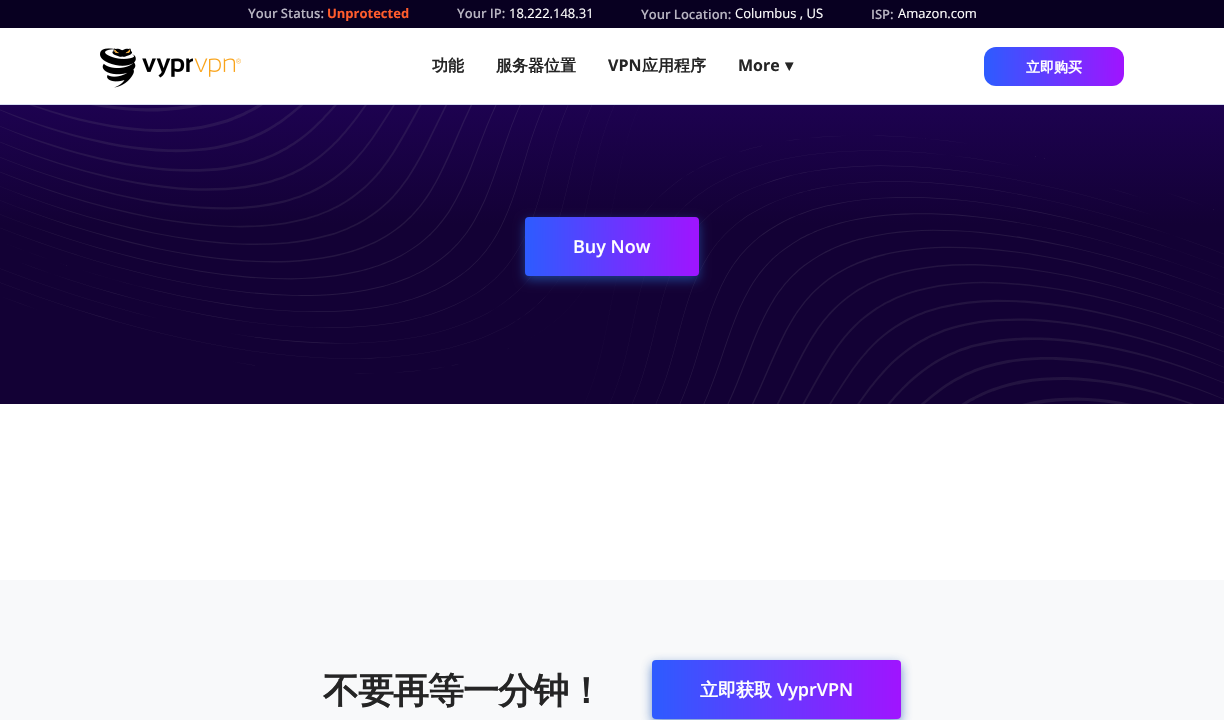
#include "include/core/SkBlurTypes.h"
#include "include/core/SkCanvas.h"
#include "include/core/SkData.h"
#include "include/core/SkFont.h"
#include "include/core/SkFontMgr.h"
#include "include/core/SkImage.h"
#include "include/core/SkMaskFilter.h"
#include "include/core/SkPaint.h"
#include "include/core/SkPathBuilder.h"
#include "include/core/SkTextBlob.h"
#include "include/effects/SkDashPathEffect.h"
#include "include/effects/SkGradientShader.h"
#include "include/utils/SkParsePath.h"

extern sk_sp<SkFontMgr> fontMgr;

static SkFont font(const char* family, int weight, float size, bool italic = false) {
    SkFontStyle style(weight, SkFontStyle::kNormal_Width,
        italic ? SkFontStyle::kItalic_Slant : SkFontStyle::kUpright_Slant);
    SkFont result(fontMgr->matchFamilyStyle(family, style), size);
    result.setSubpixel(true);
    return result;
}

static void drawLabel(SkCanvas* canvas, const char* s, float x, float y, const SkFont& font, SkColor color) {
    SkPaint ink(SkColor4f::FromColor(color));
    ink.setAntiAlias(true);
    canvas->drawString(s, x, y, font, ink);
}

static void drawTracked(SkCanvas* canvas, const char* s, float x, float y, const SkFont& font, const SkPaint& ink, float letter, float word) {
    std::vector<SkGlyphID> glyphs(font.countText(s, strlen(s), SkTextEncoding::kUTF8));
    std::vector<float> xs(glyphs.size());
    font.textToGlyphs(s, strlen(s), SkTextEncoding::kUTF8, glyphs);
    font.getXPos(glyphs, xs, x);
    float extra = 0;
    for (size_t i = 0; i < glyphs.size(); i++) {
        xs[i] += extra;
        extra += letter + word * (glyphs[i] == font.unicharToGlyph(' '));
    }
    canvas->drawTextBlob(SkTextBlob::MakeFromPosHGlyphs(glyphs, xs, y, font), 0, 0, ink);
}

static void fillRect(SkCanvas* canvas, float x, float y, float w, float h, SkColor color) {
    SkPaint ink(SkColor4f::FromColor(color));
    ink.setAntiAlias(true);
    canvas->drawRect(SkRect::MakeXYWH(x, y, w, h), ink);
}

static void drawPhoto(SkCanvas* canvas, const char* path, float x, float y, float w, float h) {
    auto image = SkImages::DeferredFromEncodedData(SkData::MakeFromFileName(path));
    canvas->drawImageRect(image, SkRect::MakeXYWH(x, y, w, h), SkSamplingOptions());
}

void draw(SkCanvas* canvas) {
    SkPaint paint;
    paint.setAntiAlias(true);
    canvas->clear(0xFFFFFFFF);
    fillRect(canvas, 0, 0, 1224, 28, 0xFF080021);
    SkFont font1 = font("Open Sans", 600, 13);
    drawLabel(canvas, "Your Status:", 248, 18, font1, 0xFFB8B5C2);
    SkFont font2 = font("Open Sans", 700, 13);
    drawLabel(canvas, "Unprotected", 327, 18, font2, 0xFFFF5C2C);
    drawLabel(canvas, "Your IP:", 457, 18, font1, 0xFFB8B5C2);
    SkFont font3 = font("Open Sans", 400, 13);
    drawLabel(canvas, "18.222.148.31", 509, 18, font3, 0xFFFFFFFF);
    drawLabel(canvas, "Your Location:", 641, 19, font1, 0xFFB8B5C2);
    drawLabel(canvas, "Columbus , US", 735, 18, font3, 0xFFFFFFFF);
    drawLabel(canvas, "ISP:", 871, 19, font1, 0xFFB8B5C2);
    drawLabel(canvas, "Amazon.com", 898, 18, font3, 0xFFFFFFFF);
    fillRect(canvas, 0, 104, 1224, 1, 0xFFD8DEF2);
    drawPhoto(canvas, "assets/img1.png", 100, 48, 141, 40);
    SkFont font4 = font("WenQuanYi Zen Hei", 700, 16);
    drawLabel(canvas, "功能", 432, 71, font4, 0xFF252525);
    drawLabel(canvas, "服务器位置", 496, 71, font4, 0xFF252525);
    SkFont font5 = font("Open Sans", 700, 16);
    drawLabel(canvas, "VPN", 608, 71, font5, 0xFF252525);
    drawLabel(canvas, "应用程序", 642, 71, font4, 0xFF252525);
    drawLabel(canvas, "More", 738, 71, font5, 0xFF252525);
    SkFont font6 = font("DejaVu Sans", 700, 16);
    drawLabel(canvas, "▾", 785, 71, font6, 0xFF252525);
    {
        const SkColor colors[] = {0xFFA014FF, 0xFF2E5BFF};
        const float stops[] = {0, 0.99f};
        const SkPoint ends[] = {{1124, 66}, {984, 67}};
        paint.setShader(SkGradientShader::MakeLinear(ends, colors, stops, 2, SkTileMode::kClamp));
        paint.setAlpha(255);
    }
    canvas->drawRoundRect(SkRect::MakeXYWH(984, 47, 140, 39), 12, 12, paint);
    SkFont font7 = font("WenQuanYi Zen Hei", 700, 14);
    drawLabel(canvas, "立即购买", 1026, 72, font7, 0xFFFFFFFF);
    drawPhoto(canvas, "assets/img2.png", 0, 105, 1224, 299);
    paint.setShader(nullptr);
    paint.setColor(0xAD245BB4);
    paint.setMaskFilter(SkMaskFilter::MakeBlur(kNormal_SkBlurStyle, 5.5f));
    canvas->drawRoundRect(SkRect::MakeXYWH(525, 221, 174, 59), 4, 4, paint);
    paint.setMaskFilter(nullptr);
    {
        const SkColor colors[] = {0xFFA014FF, 0xFF2E5BFF};
        const float stops[] = {0, 0.99f};
        const SkPoint ends[] = {{699, 246}, {525, 247}};
        paint.setShader(SkGradientShader::MakeLinear(ends, colors, stops, 2, SkTileMode::kClamp));
        paint.setAlpha(255);
    }
    canvas->drawRoundRect(SkRect::MakeXYWH(525, 217, 174, 59), 4, 4, paint);
    SkFont font8 = font("Open Sans", 600, 18);
    drawLabel(canvas, "Buy Now", 573, 253, font8, 0xFFFFFFFF);
    fillRect(canvas, 0, 580, 1224, 140, 0xFFF8F9FA);
    SkFont font9 = font("WenQuanYi Zen Hei", 700, 36);
    paint.setShader(nullptr);
    paint.setColor(0xFF252525);
    drawTracked(canvas, "不要再等一分钟！", 323, 703, font9, paint, -1, 0);
    paint.setColor(0xAD245BB4);
    paint.setMaskFilter(SkMaskFilter::MakeBlur(kNormal_SkBlurStyle, 5.5f));
    canvas->drawRoundRect(SkRect::MakeXYWH(652, 664, 249, 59), 4, 4, paint);
    paint.setMaskFilter(nullptr);
    {
        const SkColor colors[] = {0xFFA014FF, 0xFF2E5BFF};
        const float stops[] = {0, 0.99f};
        const SkPoint ends[] = {{901, 690}, {652, 690}};
        paint.setShader(SkGradientShader::MakeLinear(ends, colors, stops, 2, SkTileMode::kClamp));
        paint.setAlpha(255);
    }
    canvas->drawRoundRect(SkRect::MakeXYWH(652, 660, 249, 59), 4, 4, paint);
    SkFont font10 = font("WenQuanYi Zen Hei", 700, 18);
    drawLabel(canvas, "立即获取", 700, 696, font10, 0xFFFFFFFF);
    drawLabel(canvas, "VyprVPN", 777, 696, font8, 0xFFFFFFFF);
}
